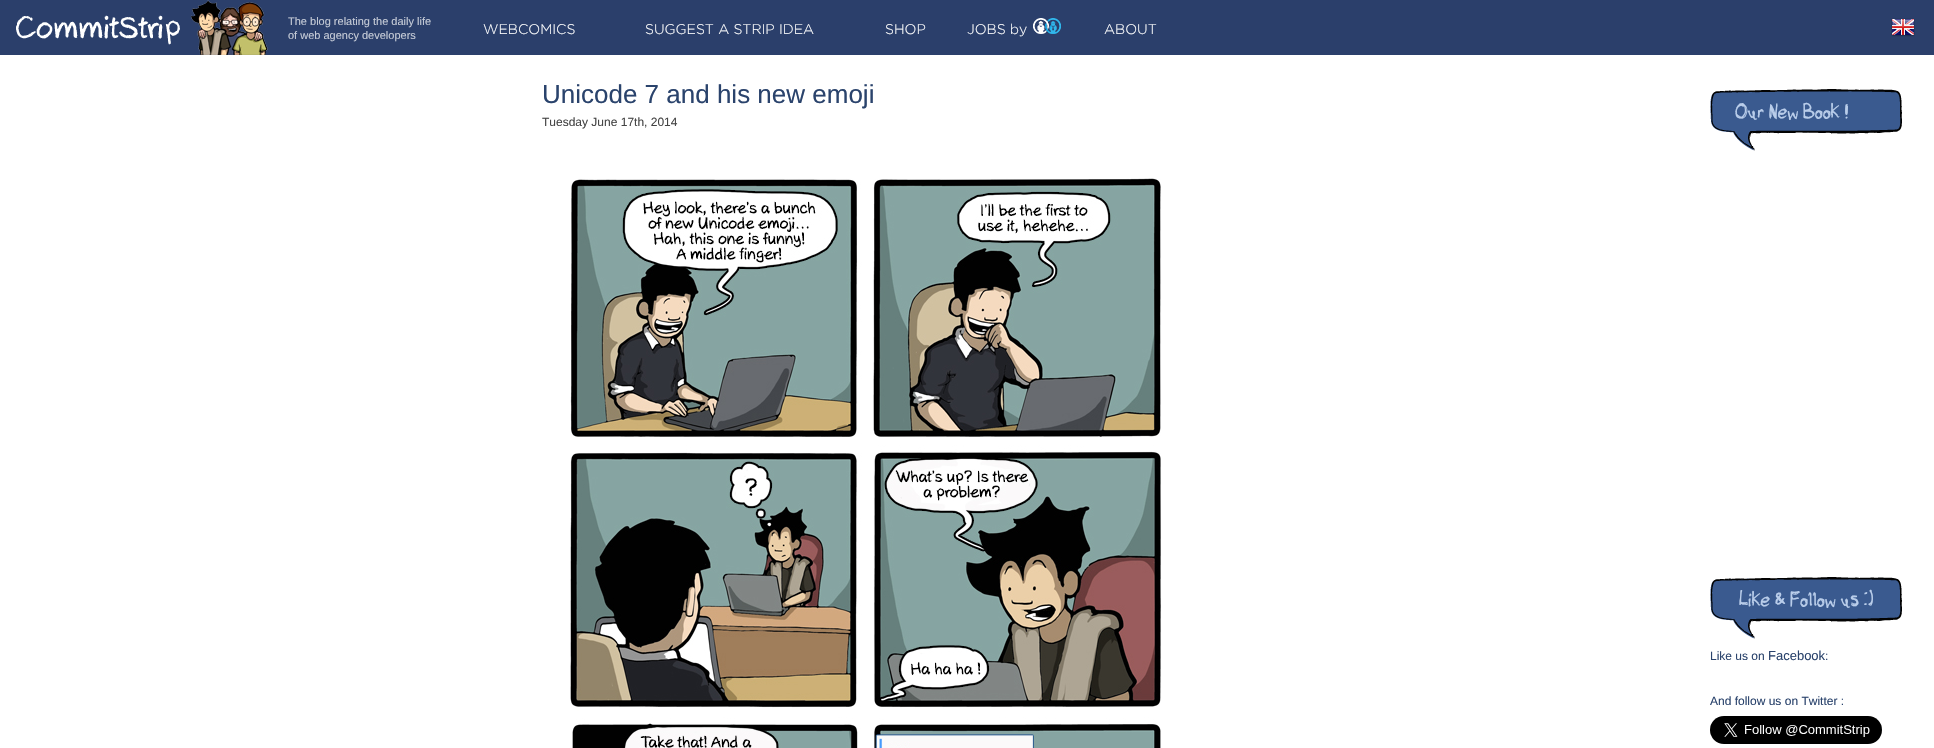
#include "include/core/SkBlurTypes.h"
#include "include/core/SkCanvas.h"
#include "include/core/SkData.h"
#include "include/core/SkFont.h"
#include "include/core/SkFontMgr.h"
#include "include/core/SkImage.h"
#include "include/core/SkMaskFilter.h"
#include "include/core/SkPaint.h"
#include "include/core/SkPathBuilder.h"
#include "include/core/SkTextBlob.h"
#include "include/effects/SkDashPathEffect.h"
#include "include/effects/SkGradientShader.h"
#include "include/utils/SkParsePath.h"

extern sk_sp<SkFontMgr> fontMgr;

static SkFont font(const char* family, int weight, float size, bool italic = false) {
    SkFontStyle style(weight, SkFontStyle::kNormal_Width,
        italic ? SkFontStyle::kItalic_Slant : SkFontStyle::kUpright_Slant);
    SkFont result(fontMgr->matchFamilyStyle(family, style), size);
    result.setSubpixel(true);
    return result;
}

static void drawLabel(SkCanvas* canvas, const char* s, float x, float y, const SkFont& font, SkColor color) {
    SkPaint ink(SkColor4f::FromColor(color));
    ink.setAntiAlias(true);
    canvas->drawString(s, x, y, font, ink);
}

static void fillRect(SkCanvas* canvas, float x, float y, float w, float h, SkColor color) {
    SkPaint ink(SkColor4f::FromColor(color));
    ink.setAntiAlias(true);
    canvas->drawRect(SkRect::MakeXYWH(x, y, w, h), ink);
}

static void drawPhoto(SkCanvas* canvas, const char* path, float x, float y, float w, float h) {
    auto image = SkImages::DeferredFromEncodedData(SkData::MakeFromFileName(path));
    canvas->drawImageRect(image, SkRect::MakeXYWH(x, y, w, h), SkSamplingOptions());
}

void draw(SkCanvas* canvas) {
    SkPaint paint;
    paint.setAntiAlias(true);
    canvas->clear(0xFFFFFFFF);
    fillRect(canvas, 0, 0, 1934, 55, 0xFF2B3F6B);
    drawPhoto(canvas, "assets/img1.png", 16, 0, 252, 55);
    SkFont font1 = font("Liberation Sans", 400, 11);
    drawLabel(canvas, "The blog relating the daily life", 288, 25, font1, 0xFFC5CBD7);
    drawLabel(canvas, "of web agency developers", 288, 39, font1, 0xFFC5CBD7);
    SkFont font2 = font("gotham", 300, 14);
    drawLabel(canvas, "WEBCOMICS", 483, 34, font2, 0xFFFFFFFF);
    drawLabel(canvas, "SUGGEST A STRIP IDEA", 645, 34, font2, 0xFFFFFFFF);
    drawLabel(canvas, "SHOP", 885, 34, font2, 0xFFFFFFFF);
    drawLabel(canvas, "JOBS by", 967, 34, font2, 0xFFFFFFFF);
    drawPhoto(canvas, "assets/img2.png", 1033, 18, 28, 16);
    drawLabel(canvas, "ABOUT", 1104, 34, font2, 0xFFFFFFFF);
    drawPhoto(canvas, "assets/img3.png", 1891, 18, 24, 19);
    SkFont font3 = font("Liberation Sans", 400, 26);
    drawLabel(canvas, "Unicode 7 and his new emoji", 542, 103, font3, 0xFF2A436C);
    SkFont font4 = font("Liberation Sans", 400, 12);
    drawLabel(canvas, "Tuesday June 17th, 2014", 542, 126, font4, 0xFF444444);
    drawPhoto(canvas, "assets/img4.png", 570, 178, 591, 570);
    drawPhoto(canvas, "assets/img5.png", 1710, 89, 192, 62);
    SkFont font5 = font("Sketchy", 500, 20);
    drawLabel(canvas, "Our New Book !", 1735, 117, font5, 0xFFB9CDEA);
    drawPhoto(canvas, "assets/img5.png", 1710, 577, 192, 62);
    drawLabel(canvas, "Like & Follow us :)", 1739, 605, font5, 0xFFB9CDEA);
    drawLabel(canvas, "Like us on", 1710, 660, font4, 0xFF2A436C);
    SkFont font6 = font("Liberation Sans", 400, 13);
    drawLabel(canvas, "Facebook", 1768, 660, font6, 0xFF2A436C);
    drawLabel(canvas, ":", 1825, 660, font4, 0xFF2A436C);
    drawLabel(canvas, "And follow us on Twitter :", 1710, 705, font4, 0xFF2A436C);
    drawPhoto(canvas, "assets/img6.png", 1710, 716, 172, 28);
}
